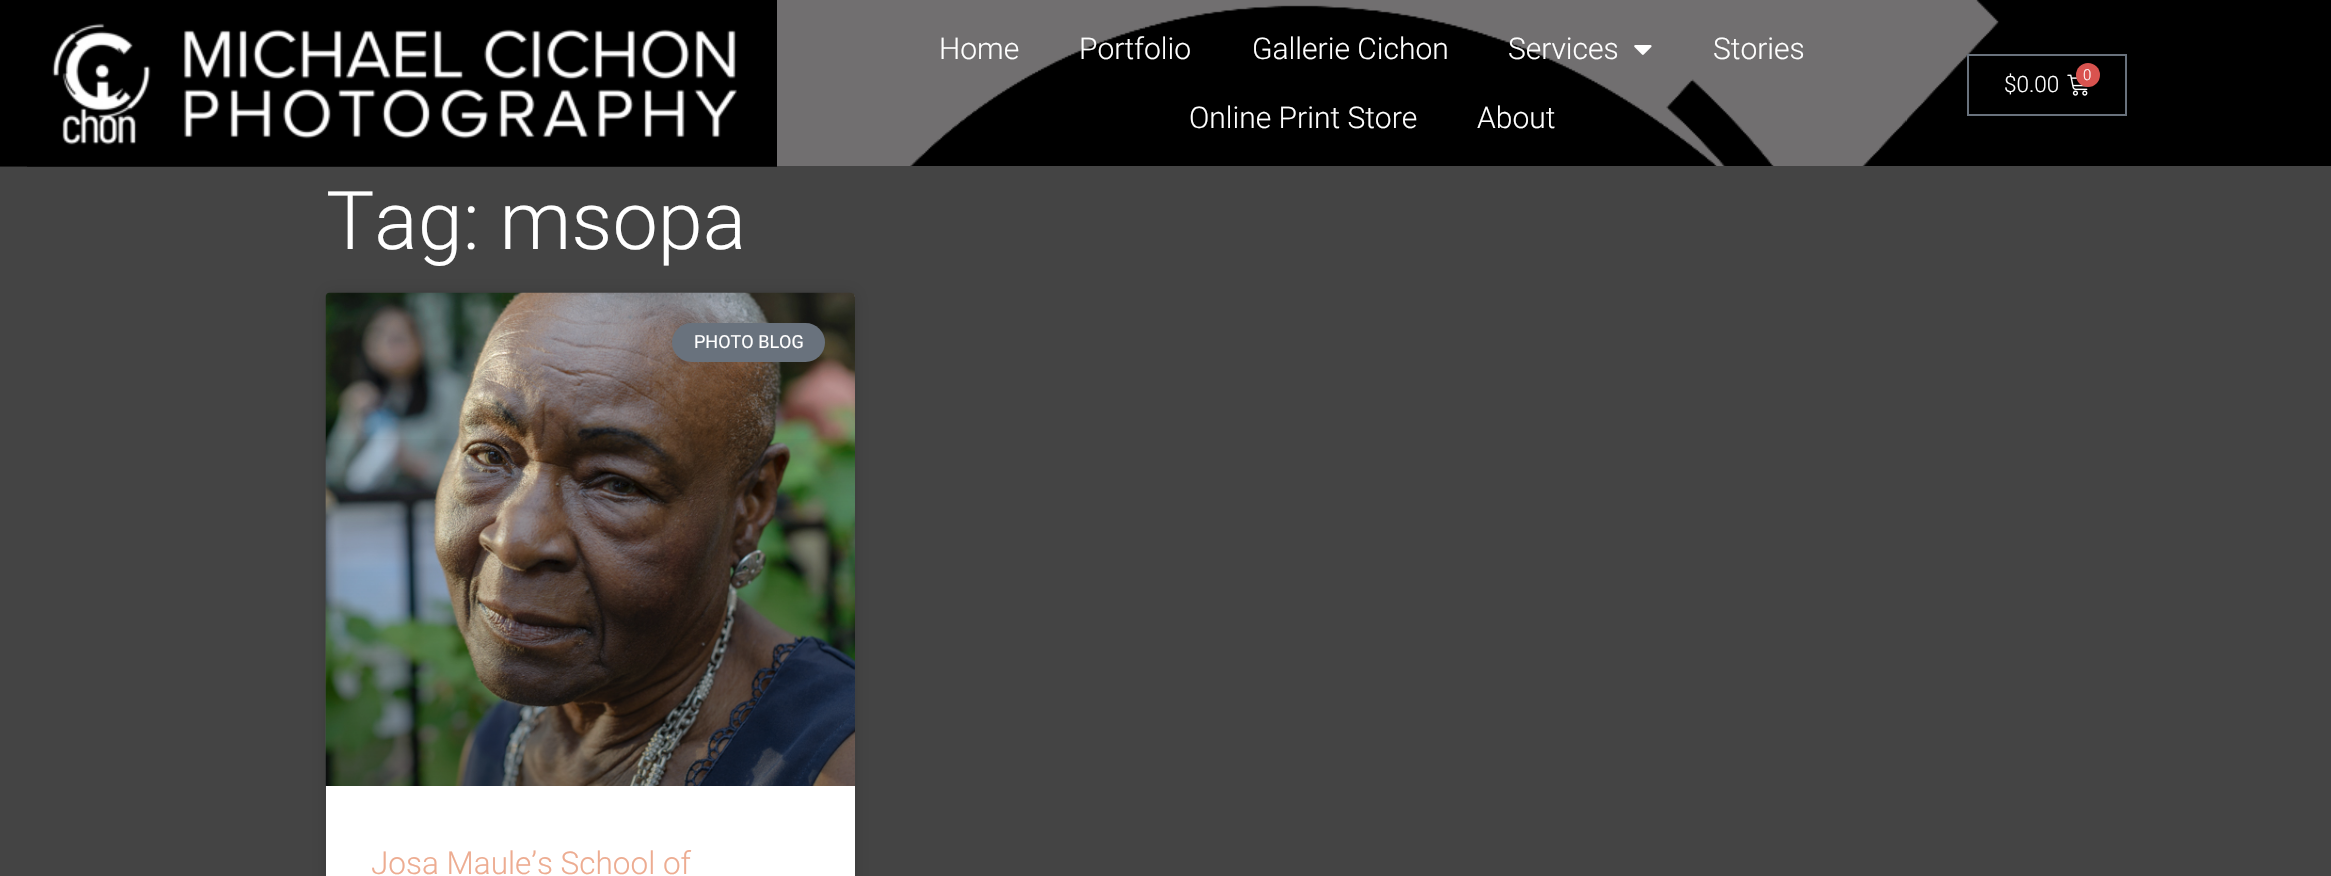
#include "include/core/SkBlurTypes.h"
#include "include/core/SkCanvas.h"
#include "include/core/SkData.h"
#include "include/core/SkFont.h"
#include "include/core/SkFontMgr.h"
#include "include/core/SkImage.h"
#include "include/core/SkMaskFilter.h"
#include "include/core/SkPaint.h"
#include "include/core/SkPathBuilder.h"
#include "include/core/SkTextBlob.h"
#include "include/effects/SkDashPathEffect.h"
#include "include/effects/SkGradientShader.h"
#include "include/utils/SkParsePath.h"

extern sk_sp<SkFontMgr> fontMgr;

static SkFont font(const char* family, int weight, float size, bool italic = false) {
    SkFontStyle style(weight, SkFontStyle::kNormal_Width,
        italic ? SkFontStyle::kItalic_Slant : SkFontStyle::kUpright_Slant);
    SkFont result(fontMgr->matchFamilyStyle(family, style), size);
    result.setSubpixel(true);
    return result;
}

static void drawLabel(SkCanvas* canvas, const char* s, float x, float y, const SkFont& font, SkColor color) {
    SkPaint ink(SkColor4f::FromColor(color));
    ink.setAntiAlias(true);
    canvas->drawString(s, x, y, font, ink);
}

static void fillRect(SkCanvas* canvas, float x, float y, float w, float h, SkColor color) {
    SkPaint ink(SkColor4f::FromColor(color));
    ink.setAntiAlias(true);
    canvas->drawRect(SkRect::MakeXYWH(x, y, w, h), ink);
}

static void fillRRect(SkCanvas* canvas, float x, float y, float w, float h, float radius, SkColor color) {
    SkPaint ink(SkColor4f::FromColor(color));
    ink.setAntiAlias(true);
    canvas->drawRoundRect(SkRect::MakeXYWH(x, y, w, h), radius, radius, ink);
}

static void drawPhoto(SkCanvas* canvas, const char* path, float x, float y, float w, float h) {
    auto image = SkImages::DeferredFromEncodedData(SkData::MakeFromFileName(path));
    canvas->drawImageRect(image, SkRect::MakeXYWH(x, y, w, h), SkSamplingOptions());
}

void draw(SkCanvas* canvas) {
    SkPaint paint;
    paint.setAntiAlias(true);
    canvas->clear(0xFF444444);
    drawPhoto(canvas, "assets/img1.png", 0, 0, 2331, 166);
    fillRect(canvas, 0, 0, 777, 167, 0x8F000000);
    drawPhoto(canvas, "assets/img2.png", 27, 0, 750, 167);
    SkFont font1 = font("Roboto", 300, 30);
    drawLabel(canvas, "Home", 939, 59, font1, 0xFFFFFFFF);
    drawLabel(canvas, "Portfolio", 1079, 59, font1, 0xFFFFFFFF);
    drawLabel(canvas, "Gallerie Cichon", 1252, 59, font1, 0xFFFFFFFF);
    drawLabel(canvas, "Services", 1508, 59, font1, 0xFFFFFFFF);
    drawPhoto(canvas, "assets/img3.png", 1634, 45, 18, 10);
    drawLabel(canvas, "Stories", 1713, 59, font1, 0xFFFFFFFF);
    drawLabel(canvas, "Online Print Store", 1189, 128, font1, 0xFFFFFFFF);
    drawLabel(canvas, "About", 1477, 128, font1, 0xFFFFFFFF);
    paint.setStroke(true);
    paint.setStrokeWidth(2);
    paint.setColor(0xFF69727D);
    canvas->drawRect(SkRect::MakeXYWH(1968, 55, 158, 60), paint);
    SkFont font2 = font("Roboto", 300, 22.5f);
    drawLabel(canvas, "$0.00", 2004, 92, font2, 0xFFFFFFFF);
    drawPhoto(canvas, "assets/img4.png", 2067, 74, 21, 22);
    paint.setStroke(false);
    paint.setColor(0xFFD9534F);
    canvas->drawCircle(2088, 75, 12, paint);
    SkFont font3 = font("Roboto", 300, 15);
    drawLabel(canvas, "0", 2083, 80, font3, 0xFFFFFFFF);
    SkFont font4 = font("Roboto", 300, 81);
    drawLabel(canvas, "Tag: msopa", 326, 249, font4, 0xFFFFFFFF);
    paint.setColor(0x26000000);
    paint.setMaskFilter(SkMaskFilter::MakeBlur(kNormal_SkBlurStyle, 7.5f));
    canvas->drawRoundRect(SkRect::MakeXYWH(326, 293, 529, 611), 5, 5, paint);
    paint.setMaskFilter(nullptr);
    fillRRect(canvas, 326, 293, 529, 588, 5, 0xFFFFFFFF);
    drawPhoto(canvas, "assets/img5.png", 325, 292, 530, 494);
    {
        const SkColor colors[] = {0x59000000, 0x00000000};
        const float stops[] = {0, 0.75f};
        const SkPoint ends[] = {{590, 786}, {590, 293}};
        paint.setShader(SkGradientShader::MakeLinear(ends, colors, stops, 2, SkTileMode::kClamp));
        paint.setAlpha(255);
    }
    canvas->drawRect(SkRect::MakeXYWH(326, 439, 529, 347), paint);
    fillRRect(canvas, 672, 323, 153, 39, 19.5f, 0xFF69727D);
    SkFont font5 = font("Roboto", 400, 18);
    drawLabel(canvas, "PHOTO BLOG", 694, 348, font5, 0xFFFFFFFF);
    SkFont font6 = font("Roboto", 300, 31.5f);
    drawLabel(canvas, "Josa Maule’s School of", 371, 874, font6, 0xFFEDAC91);
}
